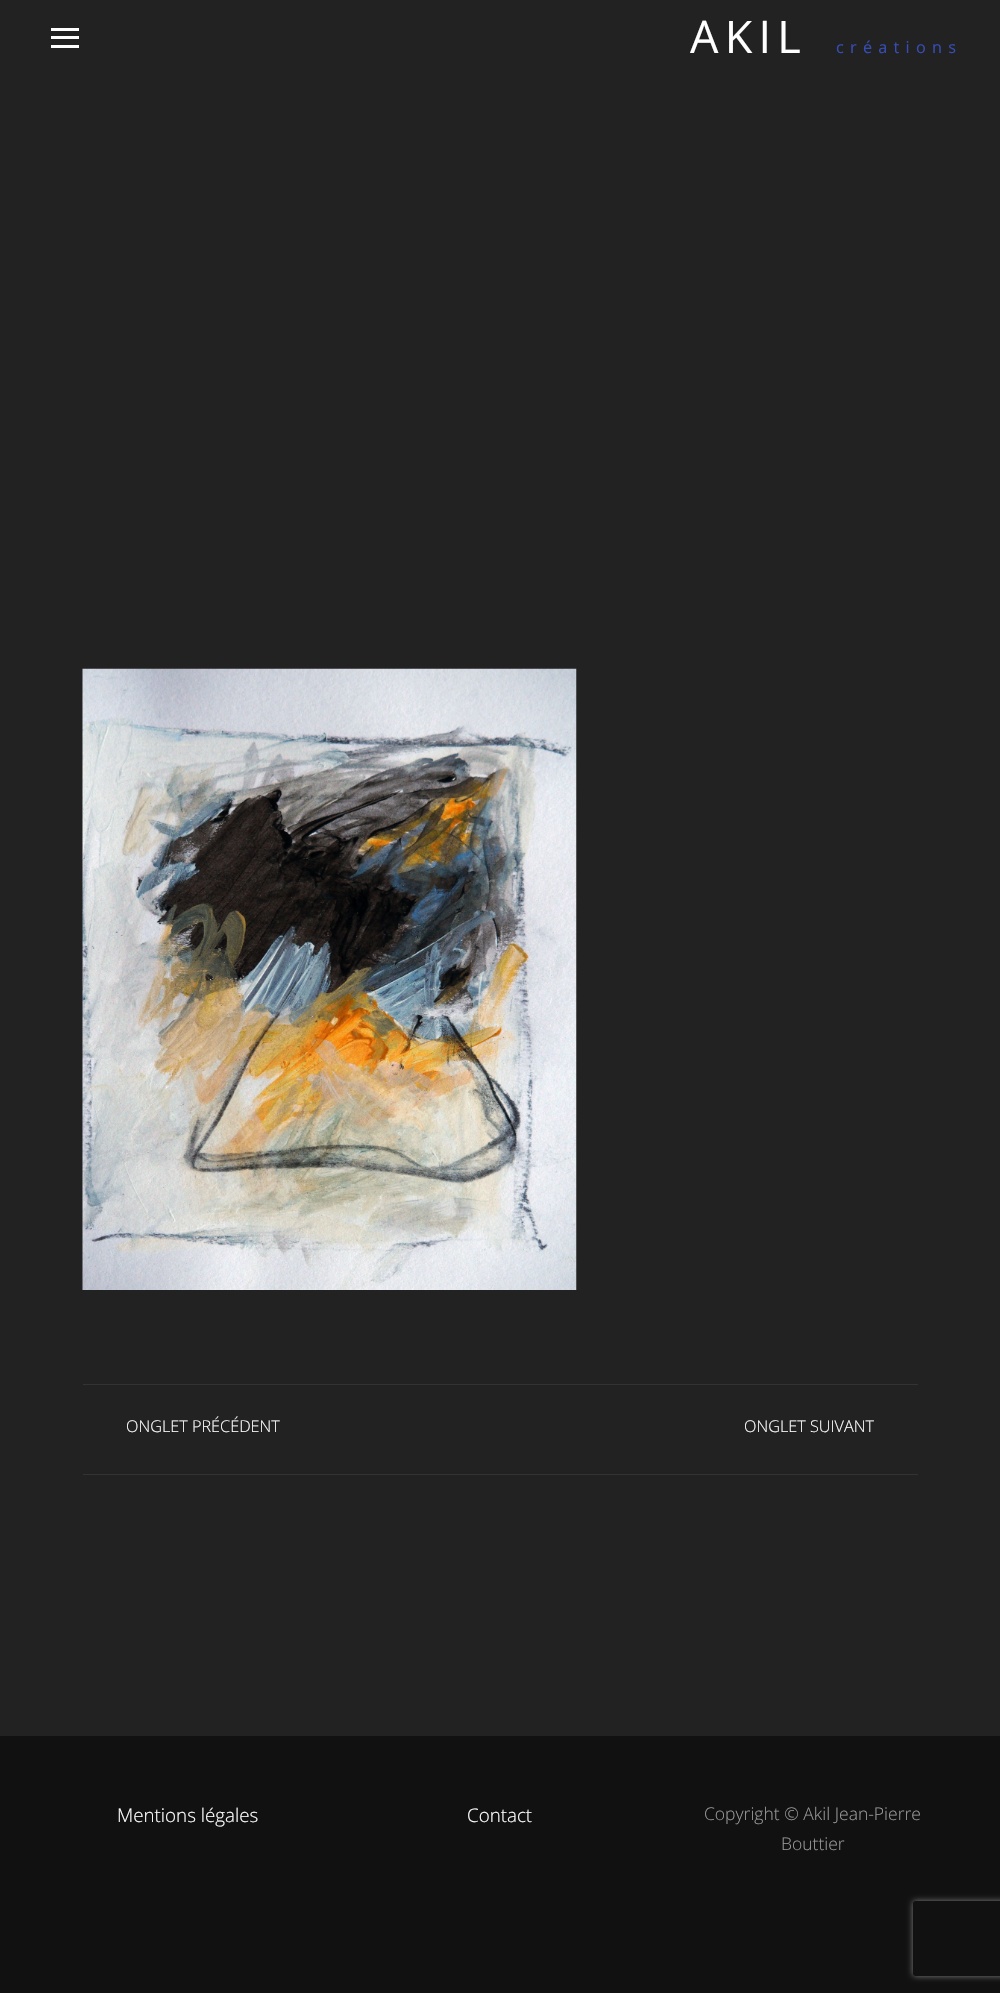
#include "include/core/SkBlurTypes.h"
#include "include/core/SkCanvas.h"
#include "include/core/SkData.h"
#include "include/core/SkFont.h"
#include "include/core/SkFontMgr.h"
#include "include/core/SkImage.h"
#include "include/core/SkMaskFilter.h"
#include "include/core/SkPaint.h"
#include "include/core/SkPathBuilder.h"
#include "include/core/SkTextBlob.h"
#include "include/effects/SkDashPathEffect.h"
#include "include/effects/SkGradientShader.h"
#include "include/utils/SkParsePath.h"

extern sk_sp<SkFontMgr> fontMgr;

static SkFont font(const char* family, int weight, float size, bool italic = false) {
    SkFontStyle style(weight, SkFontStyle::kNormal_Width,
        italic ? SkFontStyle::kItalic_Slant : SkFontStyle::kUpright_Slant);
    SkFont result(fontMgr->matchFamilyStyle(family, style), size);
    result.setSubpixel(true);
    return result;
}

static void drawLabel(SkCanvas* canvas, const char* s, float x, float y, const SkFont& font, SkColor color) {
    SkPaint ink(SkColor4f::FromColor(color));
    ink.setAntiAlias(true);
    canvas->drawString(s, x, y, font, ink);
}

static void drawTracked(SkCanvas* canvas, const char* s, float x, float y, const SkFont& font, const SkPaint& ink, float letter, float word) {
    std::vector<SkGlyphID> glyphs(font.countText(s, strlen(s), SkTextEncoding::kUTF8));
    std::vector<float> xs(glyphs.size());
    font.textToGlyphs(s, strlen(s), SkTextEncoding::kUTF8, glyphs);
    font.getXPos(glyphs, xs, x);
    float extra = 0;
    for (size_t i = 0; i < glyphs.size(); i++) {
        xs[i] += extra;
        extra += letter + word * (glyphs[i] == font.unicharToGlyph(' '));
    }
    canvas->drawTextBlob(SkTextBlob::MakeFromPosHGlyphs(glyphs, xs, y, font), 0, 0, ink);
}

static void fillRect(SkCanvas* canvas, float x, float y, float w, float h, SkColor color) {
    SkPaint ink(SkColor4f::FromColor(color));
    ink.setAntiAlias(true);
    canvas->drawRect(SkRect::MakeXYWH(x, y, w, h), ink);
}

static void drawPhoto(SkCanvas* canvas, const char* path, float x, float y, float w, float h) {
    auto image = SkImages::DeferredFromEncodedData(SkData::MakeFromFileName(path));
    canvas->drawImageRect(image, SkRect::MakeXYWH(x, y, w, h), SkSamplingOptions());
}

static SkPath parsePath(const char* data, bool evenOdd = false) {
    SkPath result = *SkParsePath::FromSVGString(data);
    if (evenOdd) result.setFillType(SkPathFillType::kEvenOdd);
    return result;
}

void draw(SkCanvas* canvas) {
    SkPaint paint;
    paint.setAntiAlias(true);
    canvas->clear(0xFF222222);
    fillRect(canvas, 51, 28, 28, 3, 0xFFFFFFFF);
    fillRect(canvas, 51, 36, 28, 3, 0xFFFFFFFF);
    fillRect(canvas, 51, 45, 28, 3, 0xFFFFFFFF);
    SkFont font1 = font("Open Sans", 400, 45);
    paint.setColor(0xFFFFFFFF);
    drawTracked(canvas, "AKIL", 690, 53, font1, paint, 6.25f, 0);
    SkFont font2 = font("Open Sans", 400, 16.25f);
    paint.setColor(0xFF354DB6);
    drawTracked(canvas, "créations", 836, 53, font2, paint, 6.25f, 0);
    drawPhoto(canvas, "assets/img1.png", 82, 668, 495, 622);
    fillRect(canvas, 83, 1384, 835, 1, 0xFF333333);
    fillRect(canvas, 83, 1474, 835, 1, 0xFF333333);
    SkFont font3 = font("Open Sans", 300, 16.25f);
    drawLabel(canvas, "ONGLET PRÉCÉDENT", 126, 1432, font3, 0xFFFFFFFF);
    drawLabel(canvas, "ONGLET SUIVANT", 744, 1432, font3, 0xFFFFFFFF);
    fillRect(canvas, 0, 1736, 1000, 257, 0xFF111111);
    SkFont font4 = font("Open Sans", 300, 18.75f);
    drawLabel(canvas, "Mentions légales", 117, 1822, font4, 0xFFFFFFFF);
    drawLabel(canvas, "Contact", 467, 1822, font4, 0xFFFFFFFF);
    SkFont font5 = font("Open Sans", 300, 17.5f);
    drawLabel(canvas, "Copyright © Akil Jean-Pierre", 704, 1820, font5, 0xFF999999);
    drawLabel(canvas, "Bouttier", 781, 1850, font5, 0xFF999999);
    canvas->save();
    canvas->clipPath(parsePath("M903 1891H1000V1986H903ZM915.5 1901H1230.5C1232 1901 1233 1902 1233 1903.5V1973.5C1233 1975 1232 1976 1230.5 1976H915.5C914 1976 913 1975 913 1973.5V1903.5C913 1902 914 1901 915.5 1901Z", true), true);
    paint.setColor(0xFF808080);
    paint.setMaskFilter(SkMaskFilter::MakeBlur(kNormal_SkBlurStyle, 3));
    canvas->drawRoundRect(SkRect::MakeXYWH(913, 1901, 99, 75), 2.5f, 2.5f, paint);
    paint.setMaskFilter(nullptr);
    canvas->restore();
}
